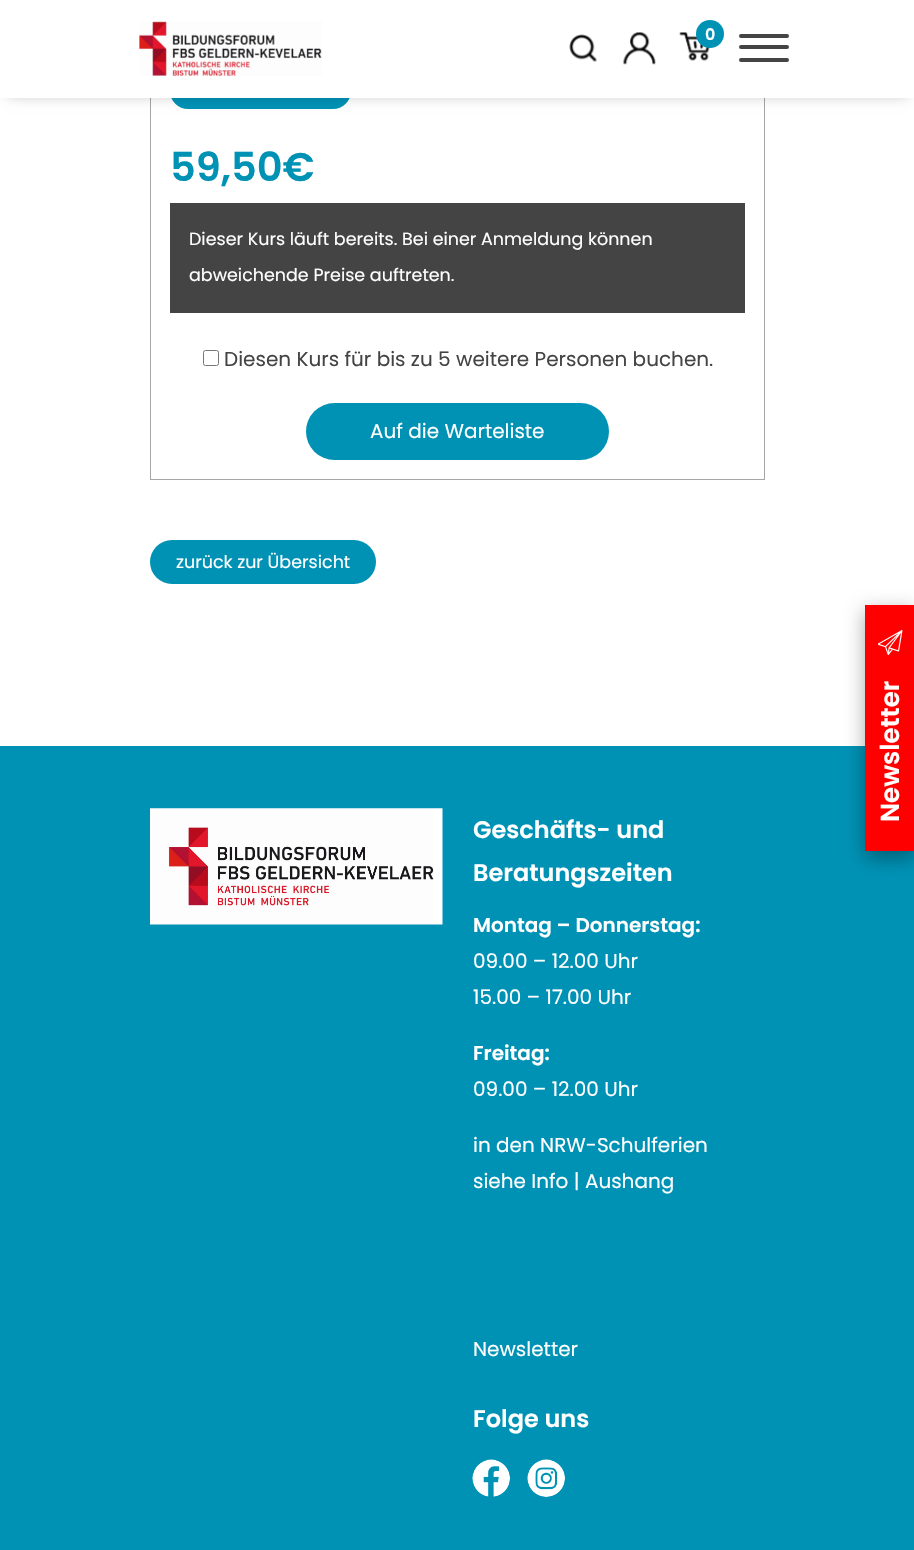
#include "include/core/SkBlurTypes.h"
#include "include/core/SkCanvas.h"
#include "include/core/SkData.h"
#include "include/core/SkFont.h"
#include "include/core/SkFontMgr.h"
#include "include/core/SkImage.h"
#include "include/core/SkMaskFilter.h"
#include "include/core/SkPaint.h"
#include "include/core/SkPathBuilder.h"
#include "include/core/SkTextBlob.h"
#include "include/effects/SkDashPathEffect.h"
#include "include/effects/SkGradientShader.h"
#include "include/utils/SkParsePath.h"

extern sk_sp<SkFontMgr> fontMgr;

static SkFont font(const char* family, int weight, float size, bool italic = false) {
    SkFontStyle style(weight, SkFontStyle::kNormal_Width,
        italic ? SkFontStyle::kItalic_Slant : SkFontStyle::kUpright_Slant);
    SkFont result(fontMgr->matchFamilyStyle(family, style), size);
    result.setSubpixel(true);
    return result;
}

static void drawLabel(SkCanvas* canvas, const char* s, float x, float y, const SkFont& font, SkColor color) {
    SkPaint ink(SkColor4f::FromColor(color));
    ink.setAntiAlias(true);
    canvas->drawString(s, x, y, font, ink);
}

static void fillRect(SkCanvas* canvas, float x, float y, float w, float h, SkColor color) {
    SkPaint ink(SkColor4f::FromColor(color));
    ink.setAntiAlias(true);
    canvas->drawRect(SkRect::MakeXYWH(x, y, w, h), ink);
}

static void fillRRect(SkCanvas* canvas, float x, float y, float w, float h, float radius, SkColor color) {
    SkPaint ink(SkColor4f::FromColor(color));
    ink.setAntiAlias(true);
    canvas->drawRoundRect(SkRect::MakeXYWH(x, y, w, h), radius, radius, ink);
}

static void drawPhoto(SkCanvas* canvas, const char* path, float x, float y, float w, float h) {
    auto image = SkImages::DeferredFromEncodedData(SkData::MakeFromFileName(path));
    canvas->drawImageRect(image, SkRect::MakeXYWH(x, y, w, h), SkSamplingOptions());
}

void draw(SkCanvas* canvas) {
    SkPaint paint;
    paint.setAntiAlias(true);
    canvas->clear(0xFFFFFFFF);
    paint.setStroke(true);
    paint.setStrokeWidth(1);
    paint.setColor(0xFFA6A6A6);
    canvas->drawRect(SkRect::MakeXYWH(150.5f, -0.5f, 614, 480), paint);
    fillRRect(canvas, 170, 73, 181, 36, 18, 0xFF0092B5);
    paint.setStroke(false);
    paint.setColor(0x4D000000);
    paint.setMaskFilter(SkMaskFilter::MakeBlur(kNormal_SkBlurStyle, 7));
    canvas->drawRect(SkRect::MakeXYWH(8, 11, 900, 83), paint);
    paint.setMaskFilter(nullptr);
    fillRect(canvas, 0, 0, 914, 98, 0xFFFFFFFF);
    drawPhoto(canvas, "assets/img1.png", 139, 21, 183, 55);
    drawPhoto(canvas, "assets/img2.png", 569, 34, 28, 28);
    drawPhoto(canvas, "assets/img3.png", 623, 32, 33, 33);
    drawPhoto(canvas, "assets/img4.png", 679, 32, 31, 29);
    paint.setColor(0xFF0092B5);
    canvas->drawCircle(710, 34, 14, paint);
    SkFont font1 = font("Poppins", 600, 16);
    drawLabel(canvas, "0", 705, 40, font1, 0xFFFFFFFF);
    fillRRect(canvas, 739, 34, 50, 4, 2, 0xFF444444);
    fillRRect(canvas, 739, 45, 50, 4, 2, 0xFF444444);
    fillRRect(canvas, 739, 58, 50, 4, 2, 0xFF444444);
    SkFont font2 = font("Poppins", 600, 40);
    drawLabel(canvas, "59,50€", 170, 181, font2, 0xFF0092B5);
    fillRect(canvas, 170, 203, 575, 110, 0xFF444444);
    SkFont font3 = font("Poppins", 400, 17.5f);
    drawLabel(canvas, "Dieser Kurs läuft bereits. Bei einer Anmeldung können", 189, 245, font3, 0xFFFFFFFF);
    drawLabel(canvas, "abweichende Preise auftreten.", 189, 281, font3, 0xFFFFFFFF);
    paint.setStroke(true);
    paint.setColor(0xFF767676);
    canvas->drawRoundRect(SkRect::MakeXYWH(203.5f, 350.5f, 15, 15), 2, 2, paint);
    SkFont font4 = font("Poppins", 400, 20);
    drawLabel(canvas, "Diesen Kurs für bis zu 5 weitere Personen buchen.", 224, 366, font4, 0xFF444444);
    fillRRect(canvas, 306, 403, 303, 57, 28.5f, 0xFF0092B5);
    drawLabel(canvas, "Auf die Warteliste", 370, 438, font4, 0xFFFFFFFF);
    fillRRect(canvas, 150, 540, 226, 44, 22, 0xFF0092B5);
    drawLabel(canvas, "zurück zur Übersicht", 176, 568, font3, 0xFFFFFFFF);
    fillRect(canvas, 0, 746, 914, 804, 0xFF0092B5);
    paint.setStroke(false);
    paint.setColor(0x59000000);
    paint.setMaskFilter(SkMaskFilter::MakeBlur(kNormal_SkBlurStyle, 9.5f));
    canvas->drawRect(SkRect::MakeXYWH(865, 611, 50, 247), paint);
    paint.setMaskFilter(nullptr);
    fillRect(canvas, 865, 605, 49, 246, 0xFFFF0000);
    drawPhoto(canvas, "assets/img5.png", 878, 630, 25, 25);
    SkFont font5 = font("Poppins", 600, 26);
    canvas->save();
    canvas->rotate(-90, 899, 822);
    drawLabel(canvas, "Newsletter", 899, 822, font5, 0xFFFFFFFF);
    canvas->restore();
    drawPhoto(canvas, "assets/img6.png", 150, 808, 293, 117);
    SkFont font6 = font("Poppins", 600, 24);
    drawLabel(canvas, "Geschäfts- und", 473, 838, font6, 0xFFFFFFFF);
    drawLabel(canvas, "Beratungszeiten", 473, 881, font6, 0xFFFFFFFF);
    SkFont font7 = font("Poppins", 600, 20);
    drawLabel(canvas, "Montag – Donnerstag:", 473, 932, font7, 0xFFFFFFFF);
    drawLabel(canvas, "09.00 – 12.00 Uhr", 473, 968, font4, 0xFFFFFFFF);
    drawLabel(canvas, "15.00 – 17.00 Uhr", 473, 1004, font4, 0xFFFFFFFF);
    drawLabel(canvas, "Freitag:", 473, 1060, font7, 0xFFFFFFFF);
    drawLabel(canvas, "09.00 – 12.00 Uhr", 473, 1096, font4, 0xFFFFFFFF);
    drawLabel(canvas, "in den NRW-Schulferien", 473, 1152, font4, 0xFFFFFFFF);
    drawLabel(canvas, "siehe Info | Aushang", 473, 1188, font4, 0xFFFFFFFF);
    drawLabel(canvas, "Newsletter", 473, 1356, font4, 0xFFFFFFFF);
    drawLabel(canvas, "Folge uns", 473, 1427, font6, 0xFFFFFFFF);
    drawPhoto(canvas, "assets/img7.png", 472, 1459, 39, 38);
    drawPhoto(canvas, "assets/img8.png", 527, 1459, 39, 38);
}
